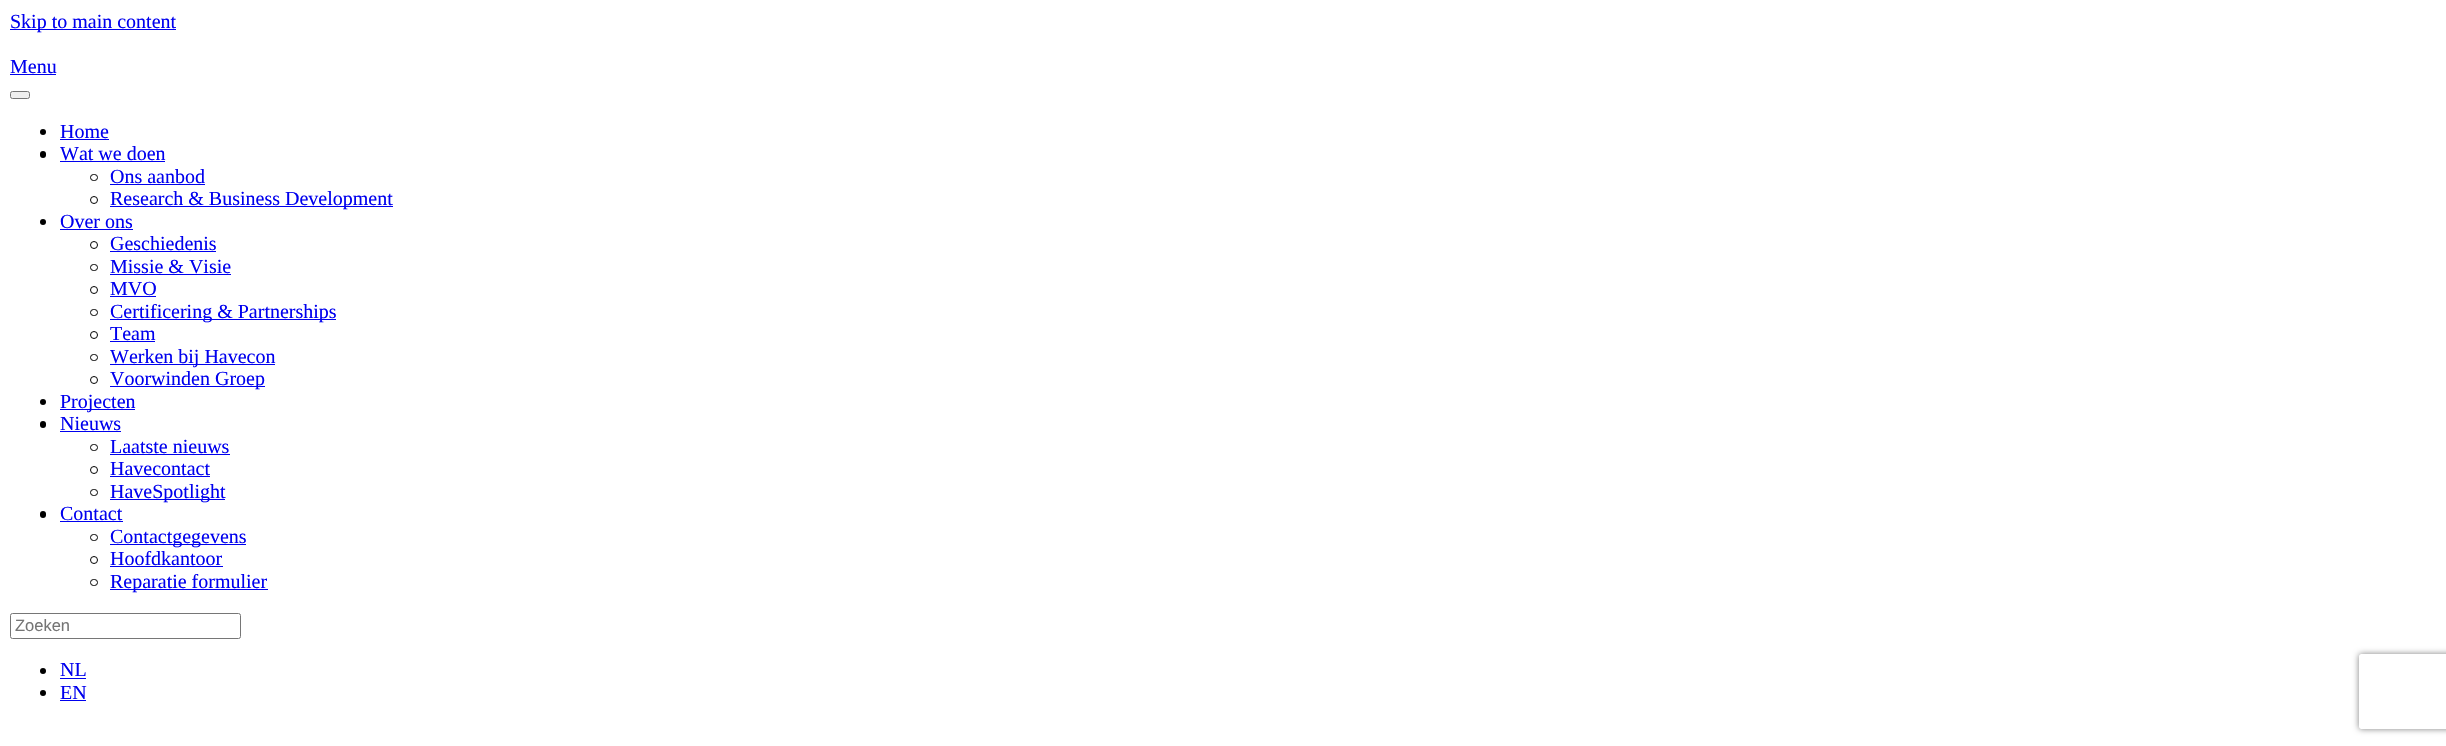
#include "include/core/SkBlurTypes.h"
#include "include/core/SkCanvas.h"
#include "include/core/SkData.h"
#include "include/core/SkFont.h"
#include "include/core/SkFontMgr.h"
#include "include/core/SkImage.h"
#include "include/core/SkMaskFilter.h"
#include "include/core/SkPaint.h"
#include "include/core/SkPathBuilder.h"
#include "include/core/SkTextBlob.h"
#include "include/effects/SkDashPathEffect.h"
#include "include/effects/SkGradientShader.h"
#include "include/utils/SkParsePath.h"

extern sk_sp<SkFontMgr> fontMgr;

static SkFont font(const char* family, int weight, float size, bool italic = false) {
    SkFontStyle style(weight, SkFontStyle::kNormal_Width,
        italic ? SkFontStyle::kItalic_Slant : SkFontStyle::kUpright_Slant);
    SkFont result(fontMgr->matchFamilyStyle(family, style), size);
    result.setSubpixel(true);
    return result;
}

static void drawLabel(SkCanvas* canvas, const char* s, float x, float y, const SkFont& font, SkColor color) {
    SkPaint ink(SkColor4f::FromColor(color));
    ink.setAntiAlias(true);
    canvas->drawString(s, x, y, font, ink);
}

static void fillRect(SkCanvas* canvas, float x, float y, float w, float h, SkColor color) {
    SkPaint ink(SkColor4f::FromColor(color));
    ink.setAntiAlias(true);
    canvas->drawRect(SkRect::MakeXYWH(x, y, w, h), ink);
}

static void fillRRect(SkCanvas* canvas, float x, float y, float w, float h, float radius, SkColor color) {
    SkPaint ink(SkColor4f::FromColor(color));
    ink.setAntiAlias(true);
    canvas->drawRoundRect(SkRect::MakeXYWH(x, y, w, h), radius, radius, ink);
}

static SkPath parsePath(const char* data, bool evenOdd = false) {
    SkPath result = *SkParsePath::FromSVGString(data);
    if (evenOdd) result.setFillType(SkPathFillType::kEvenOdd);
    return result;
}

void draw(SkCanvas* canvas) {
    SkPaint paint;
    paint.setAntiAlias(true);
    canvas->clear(0xFFFFFFFF);
    fillRect(canvas, 10, 29, 166, 1, 0xFF0000EE);
    SkFont font1 = font("Liberation Serif", 400, 20);
    drawLabel(canvas, "Skip to main content", 10, 28, font1, 0xFF0000EE);
    drawLabel(canvas, "Menu", 10, 73, font1, 0xFF0000EE);
    fillRect(canvas, 10, 74, 46, 1, 0xFF0000EE);
    paint.setColor(0xFFEFEFEF);
    canvas->drawRoundRect(SkRect::MakeXYWH(10.5f, 91.5f, 19, 7), 2, 2, paint);
    paint.setStroke(true);
    paint.setStrokeWidth(1);
    paint.setColor(0xFF767676);
    canvas->drawRoundRect(SkRect::MakeXYWH(10.5f, 91.5f, 19, 7), 2, 2, paint);
    paint.setStroke(false);
    paint.setColor(0xFF000000);
    canvas->drawCircle(43, 132, 3, paint);
    drawLabel(canvas, "Home", 60, 138, font1, 0xFF0000EE);
    fillRect(canvas, 60, 139, 49, 1, 0xFF0000EE);
    fillRRect(canvas, 40, 151, 6, 7, 3, 0xFF000000);
    drawLabel(canvas, "Wat we doen", 60, 160, font1, 0xFF0000EE);
    fillRect(canvas, 60, 161, 105, 1, 0xFF0000EE);
    paint.setStroke(true);
    canvas->drawRoundRect(SkRect::MakeXYWH(90.5f, 174.5f, 7, 6), 3, 3, paint);
    drawLabel(canvas, "Ons aanbod", 110, 183, font1, 0xFF0000EE);
    fillRect(canvas, 110, 184, 95, 1, 0xFF0000EE);
    canvas->drawCircle(94, 200, 3.5f, paint);
    fillRect(canvas, 110, 206, 283, 1, 0xFF0000EE);
    drawLabel(canvas, "Research & Business Development", 110, 205, font1, 0xFF0000EE);
    paint.setStroke(false);
    canvas->drawCircle(43, 222, 3, paint);
    drawLabel(canvas, "Over ons", 60, 228, font1, 0xFF0000EE);
    fillRect(canvas, 60, 229, 73, 1, 0xFF0000EE);
    paint.setStroke(true);
    canvas->drawCircle(94, 245, 3.5f, paint);
    drawLabel(canvas, "Geschiedenis", 110, 250, font1, 0xFF0000EE);
    fillRect(canvas, 110, 251, 106, 1, 0xFF0000EE);
    canvas->drawRoundRect(SkRect::MakeXYWH(90.5f, 264.5f, 7, 6), 3, 3, paint);
    drawLabel(canvas, "Missie & Visie", 110, 273, font1, 0xFF0000EE);
    fillRect(canvas, 110, 274, 121, 1, 0xFF0000EE);
    canvas->drawCircle(94, 290, 3.5f, paint);
    drawLabel(canvas, "MVO", 110, 295, font1, 0xFF0000EE);
    fillRect(canvas, 110, 296, 46, 1, 0xFF0000EE);
    canvas->drawRoundRect(SkRect::MakeXYWH(90.5f, 309.5f, 7, 6), 3, 3, paint);
    fillRect(canvas, 110, 319, 226, 1, 0xFF0000EE);
    drawLabel(canvas, "Certificering & Partnerships", 110, 318, font1, 0xFF0000EE);
    canvas->drawCircle(94, 335, 3.5f, paint);
    drawLabel(canvas, "Team", 110, 340, font1, 0xFF0000EE);
    fillRect(canvas, 110, 341, 45, 1, 0xFF0000EE);
    canvas->drawRoundRect(SkRect::MakeXYWH(90.5f, 354.5f, 7, 6), 3, 3, paint);
    fillRect(canvas, 110, 364, 165, 1, 0xFF0000EE);
    drawLabel(canvas, "Werken bij Havecon", 110, 363, font1, 0xFF0000EE);
    canvas->drawCircle(94, 380, 3.5f, paint);
    fillRect(canvas, 110, 386, 155, 1, 0xFF0000EE);
    drawLabel(canvas, "Voorwinden Groep", 110, 385, font1, 0xFF0000EE);
    paint.setStroke(false);
    canvas->drawCircle(43, 402, 3, paint);
    fillRect(canvas, 60, 409, 75, 1, 0xFF0000EE);
    drawLabel(canvas, "Projecten", 60, 408, font1, 0xFF0000EE);
    fillRRect(canvas, 40, 421, 6, 7, 3, 0xFF000000);
    drawLabel(canvas, "Nieuws", 60, 430, font1, 0xFF0000EE);
    fillRect(canvas, 60, 431, 61, 1, 0xFF0000EE);
    paint.setStroke(true);
    canvas->drawRoundRect(SkRect::MakeXYWH(90.5f, 444.5f, 7, 6), 3, 3, paint);
    drawLabel(canvas, "Laatste nieuws", 110, 453, font1, 0xFF0000EE);
    fillRect(canvas, 110, 454, 120, 1, 0xFF0000EE);
    canvas->drawCircle(94, 470, 3.5f, paint);
    drawLabel(canvas, "Havecontact", 110, 475, font1, 0xFF0000EE);
    fillRect(canvas, 110, 476, 100, 1, 0xFF0000EE);
    canvas->drawRoundRect(SkRect::MakeXYWH(90.5f, 489.5f, 7, 6), 3, 3, paint);
    fillRect(canvas, 110, 499, 115, 1, 0xFF0000EE);
    drawLabel(canvas, "HaveSpotlight", 110, 498, font1, 0xFF0000EE);
    fillRRect(canvas, 40, 511, 6, 7, 3, 0xFF000000);
    drawLabel(canvas, "Contact", 60, 520, font1, 0xFF0000EE);
    fillRect(canvas, 60, 521, 63, 1, 0xFF0000EE);
    canvas->drawRoundRect(SkRect::MakeXYWH(90.5f, 534.5f, 7, 6), 3, 3, paint);
    fillRect(canvas, 110, 544, 136, 1, 0xFF0000EE);
    drawLabel(canvas, "Contactgegevens", 110, 543, font1, 0xFF0000EE);
    canvas->drawCircle(94, 560, 3.5f, paint);
    drawLabel(canvas, "Hoofdkantoor", 110, 565, font1, 0xFF0000EE);
    fillRect(canvas, 110, 566, 113, 1, 0xFF0000EE);
    canvas->drawRoundRect(SkRect::MakeXYWH(90.5f, 579.5f, 7, 6), 3, 3, paint);
    fillRect(canvas, 110, 589, 158, 1, 0xFF0000EE);
    drawLabel(canvas, "Reparatie formulier", 110, 588, font1, 0xFF0000EE);
    paint.setColor(0xFF767676);
    canvas->drawRoundRect(SkRect::MakeXYWH(10.5f, 613.5f, 230, 25), 2, 2, paint);
    SkFont font2 = font("Liberation Sans", 400, 16.5f);
    drawLabel(canvas, "Zoeken", 15, 631, font2, 0xFF757575);
    paint.setStroke(false);
    paint.setColor(0xFF000000);
    canvas->drawCircle(43, 671, 3, paint);
    drawLabel(canvas, "NL", 60, 676, font1, 0xFF0000EE);
    fillRect(canvas, 60, 678, 26, 1, 0xFF0000EE);
    canvas->drawCircle(43, 693, 3, paint);
    drawLabel(canvas, "EN", 60, 699, font1, 0xFF0000EE);
    fillRect(canvas, 60, 700, 26, 1, 0xFF0000EE);
    canvas->save();
    canvas->clipPath(parsePath("M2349 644H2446V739H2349ZM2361.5 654H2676.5C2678 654 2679 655 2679 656.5V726.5C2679 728 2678 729 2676.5 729H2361.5C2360 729 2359 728 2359 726.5V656.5C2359 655 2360 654 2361.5 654Z", true), true);
    paint.setColor(0xFF808080);
    paint.setMaskFilter(SkMaskFilter::MakeBlur(kNormal_SkBlurStyle, 3));
    canvas->drawRoundRect(SkRect::MakeXYWH(2359, 654, 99, 75), 2.5f, 2.5f, paint);
    paint.setMaskFilter(nullptr);
    canvas->restore();
}
